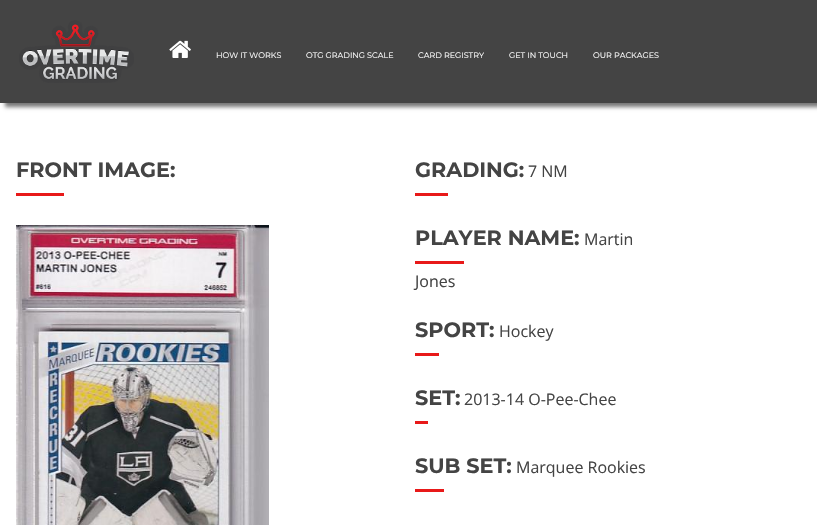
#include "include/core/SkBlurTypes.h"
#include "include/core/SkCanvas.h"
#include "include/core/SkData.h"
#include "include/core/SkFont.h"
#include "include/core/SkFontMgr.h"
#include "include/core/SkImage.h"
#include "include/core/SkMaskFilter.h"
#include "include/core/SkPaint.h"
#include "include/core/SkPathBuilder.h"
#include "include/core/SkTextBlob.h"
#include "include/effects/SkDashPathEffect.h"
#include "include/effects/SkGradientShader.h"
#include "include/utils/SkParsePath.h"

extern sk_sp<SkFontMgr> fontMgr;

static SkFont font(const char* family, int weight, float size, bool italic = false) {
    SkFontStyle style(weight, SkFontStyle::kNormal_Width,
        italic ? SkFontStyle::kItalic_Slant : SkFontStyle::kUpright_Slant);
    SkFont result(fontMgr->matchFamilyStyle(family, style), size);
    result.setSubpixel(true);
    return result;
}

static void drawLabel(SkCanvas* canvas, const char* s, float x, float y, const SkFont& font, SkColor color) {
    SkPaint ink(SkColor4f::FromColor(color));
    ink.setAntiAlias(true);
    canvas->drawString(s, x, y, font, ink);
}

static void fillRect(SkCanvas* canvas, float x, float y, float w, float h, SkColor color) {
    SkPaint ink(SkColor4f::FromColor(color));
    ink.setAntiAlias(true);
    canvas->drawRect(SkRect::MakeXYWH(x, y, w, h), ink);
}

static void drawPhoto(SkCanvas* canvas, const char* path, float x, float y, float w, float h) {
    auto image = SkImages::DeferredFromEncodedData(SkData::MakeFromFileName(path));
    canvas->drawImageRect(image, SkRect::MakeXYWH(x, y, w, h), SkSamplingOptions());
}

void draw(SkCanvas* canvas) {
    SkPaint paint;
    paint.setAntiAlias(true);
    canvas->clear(0xFFFFFFFF);
    paint.setColor(0xFF777777);
    paint.setMaskFilter(SkMaskFilter::MakeBlur(kNormal_SkBlurStyle, 2));
    canvas->drawRect(SkRect::MakeXYWH(5, 4, 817, 103), paint);
    paint.setMaskFilter(nullptr);
    fillRect(canvas, 0, 0, 817, 103, 0xFF444444);
    drawPhoto(canvas, "assets/img1.png", 19, 20, 115, 63);
    drawPhoto(canvas, "assets/img2.png", 169, 40, 22, 18);
    SkFont font1 = font("Montserrat", 400, 8);
    drawLabel(canvas, "HOW IT WORKS", 216, 58, font1, 0xFFFFFFFF);
    drawLabel(canvas, "OTG GRADING SCALE", 306, 58, font1, 0xFFFFFFFF);
    drawLabel(canvas, "CARD REGISTRY", 418, 58, font1, 0xFFFFFFFF);
    drawLabel(canvas, "GET IN TOUCH", 509, 58, font1, 0xFFFFFFFF);
    drawLabel(canvas, "OUR PACKAGES", 593, 58, font1, 0xFFFFFFFF);
    SkFont font2 = font("Montserrat", 700, 20.75f);
    drawLabel(canvas, "FRONT IMAGE:", 16, 177, font2, 0xFF444444);
    fillRect(canvas, 16, 193, 48, 3, 0xFFE81919);
    drawPhoto(canvas, "assets/img3.png", 16, 225, 253, 300);
    drawLabel(canvas, "GRADING:", 415, 177, font2, 0xFF444444);
    fillRect(canvas, 415, 193, 33, 3, 0xFFE81919);
    SkFont font3 = font("Open Sans", 400, 16);
    drawLabel(canvas, "7 NM", 528, 177, font3, 0xFF444444);
    drawLabel(canvas, "PLAYER NAME:", 415, 245, font2, 0xFF444444);
    fillRect(canvas, 415, 261, 49, 3, 0xFFE81919);
    drawLabel(canvas, "Martin", 584, 245, font3, 0xFF444444);
    drawLabel(canvas, "Jones", 415, 287, font3, 0xFF444444);
    drawLabel(canvas, "SPORT:", 415, 337, font2, 0xFF444444);
    fillRect(canvas, 415, 353, 24, 3, 0xFFE81919);
    drawLabel(canvas, "Hockey", 499, 337, font3, 0xFF444444);
    drawLabel(canvas, "SET:", 415, 405, font2, 0xFF444444);
    fillRect(canvas, 415, 421, 13, 3, 0xFFE81919);
    drawLabel(canvas, "2013-14 O-Pee-Chee", 464, 405, font3, 0xFF444444);
    drawLabel(canvas, "SUB SET:", 415, 473, font2, 0xFF444444);
    fillRect(canvas, 415, 489, 29, 3, 0xFFE81919);
    drawLabel(canvas, "Marquee Rookies", 516, 473, font3, 0xFF444444);
}
